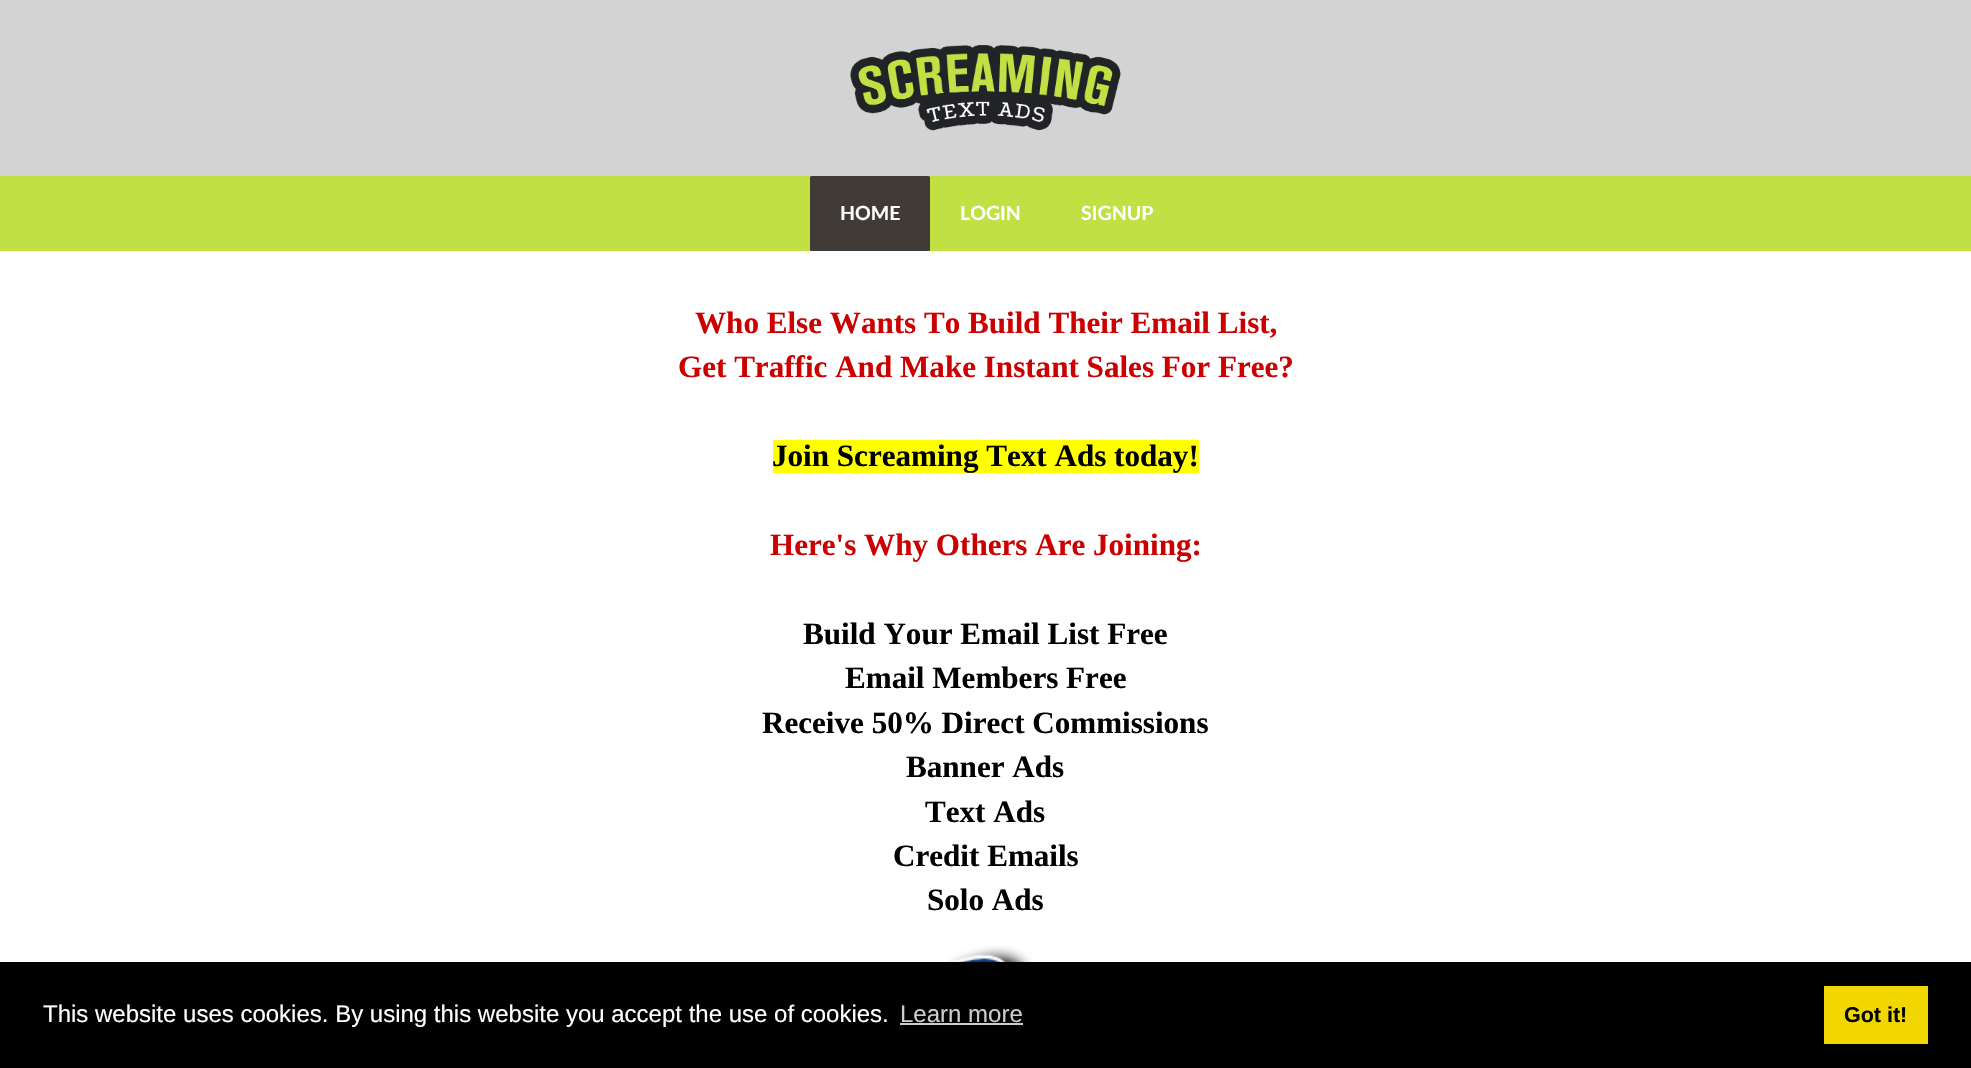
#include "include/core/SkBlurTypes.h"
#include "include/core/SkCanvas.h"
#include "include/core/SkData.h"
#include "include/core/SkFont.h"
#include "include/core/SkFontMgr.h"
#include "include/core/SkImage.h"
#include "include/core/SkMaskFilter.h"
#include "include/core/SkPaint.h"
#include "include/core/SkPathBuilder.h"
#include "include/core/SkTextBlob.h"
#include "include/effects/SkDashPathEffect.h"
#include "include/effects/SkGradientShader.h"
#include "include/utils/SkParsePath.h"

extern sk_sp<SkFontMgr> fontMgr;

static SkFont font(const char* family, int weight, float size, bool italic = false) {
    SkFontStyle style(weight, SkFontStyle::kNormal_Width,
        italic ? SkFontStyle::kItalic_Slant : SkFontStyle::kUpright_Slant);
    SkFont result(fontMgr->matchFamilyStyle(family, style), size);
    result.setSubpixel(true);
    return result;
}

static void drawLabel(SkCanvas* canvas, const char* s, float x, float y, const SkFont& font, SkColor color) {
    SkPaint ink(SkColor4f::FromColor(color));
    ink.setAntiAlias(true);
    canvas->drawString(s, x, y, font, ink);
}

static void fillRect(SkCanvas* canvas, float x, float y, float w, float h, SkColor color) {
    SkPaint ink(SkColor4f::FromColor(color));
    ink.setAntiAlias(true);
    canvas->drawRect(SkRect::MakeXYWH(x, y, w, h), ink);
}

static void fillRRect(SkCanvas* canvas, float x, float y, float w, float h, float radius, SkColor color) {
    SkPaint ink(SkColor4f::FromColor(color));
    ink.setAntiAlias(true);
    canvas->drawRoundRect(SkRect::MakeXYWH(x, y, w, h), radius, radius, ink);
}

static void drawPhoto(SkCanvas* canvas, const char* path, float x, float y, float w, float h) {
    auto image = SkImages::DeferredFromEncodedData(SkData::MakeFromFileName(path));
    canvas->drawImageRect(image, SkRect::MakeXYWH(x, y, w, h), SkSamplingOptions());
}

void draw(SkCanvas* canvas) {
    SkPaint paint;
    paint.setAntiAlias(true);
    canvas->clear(0xFFFFFFFF);
    fillRect(canvas, 0, 0, 1971, 176, 0xFFD3D3D3);
    drawPhoto(canvas, "assets/img1.png", 850, 45, 271, 86);
    fillRect(canvas, 0, 176, 1971, 75, 0xFFC1E044);
    fillRRect(canvas, 810, 176, 120, 75, 1.5f, 0xFF413B38);
    SkFont font1 = font("Lato", 700, 19.5f);
    drawLabel(canvas, "HOME", 840, 220, font1, 0xFFFFFFFF);
    drawLabel(canvas, "LOGIN", 960, 220, font1, 0xFFFFFFFF);
    drawLabel(canvas, "SIGNUP", 1081, 220, font1, 0xFFFFFFFF);
    SkFont font2 = font("Liberation Serif", 700, 31.1f);
    drawLabel(canvas, "Who Else Wants To Build Their Email List,", 695, 333, font2, 0xFFCC0000);
    drawLabel(canvas, "Get Traffic And Make Instant Sales For Free?", 678, 377, font2, 0xFFCC0000);
    fillRect(canvas, 773, 440, 426, 33, 0xFFFFFF00);
    drawLabel(canvas, "Join Screaming Text Ads today!", 772, 466, font2, 0xFF000000);
    drawLabel(canvas, "Here's Why Others Are Joining:", 770, 555, font2, 0xFFCC0000);
    drawLabel(canvas, "Build Your Email List Free", 803, 644, font2, 0xFF000000);
    drawLabel(canvas, "Email Members Free", 845, 688, font2, 0xFF000000);
    drawLabel(canvas, "Receive 50% Direct Commissions", 762, 733, font2, 0xFF000000);
    drawLabel(canvas, "Banner Ads", 906, 777, font2, 0xFF000000);
    drawLabel(canvas, "Text Ads", 925, 822, font2, 0xFF000000);
    drawLabel(canvas, "Credit Emails", 893, 866, font2, 0xFF000000);
    drawLabel(canvas, "Solo Ads", 927, 910, font2, 0xFF000000);
    drawPhoto(canvas, "assets/img2.png", 803, 946, 346, 16);
    fillRect(canvas, 0, 962, 1971, 106, 0xFF000000);
    SkFont font3 = font("Liberation Sans", 400, 24);
    drawLabel(canvas, "This website uses cookies. By using this website you accept the use of cookies.", 43, 1022, font3, 0xFFFFFFFF);
    drawLabel(canvas, "Learn more", 900, 1022, font3, 0xFFCCCCCC);
    fillRect(canvas, 900, 1023, 123, 2, 0xFFCCCCCC);
    fillRect(canvas, 1824, 986, 104, 58, 0xFFF1D600);
    SkFont font4 = font("Liberation Sans", 700, 21.5f);
    drawLabel(canvas, "Got it!", 1844, 1022, font4, 0xFF000000);
}
